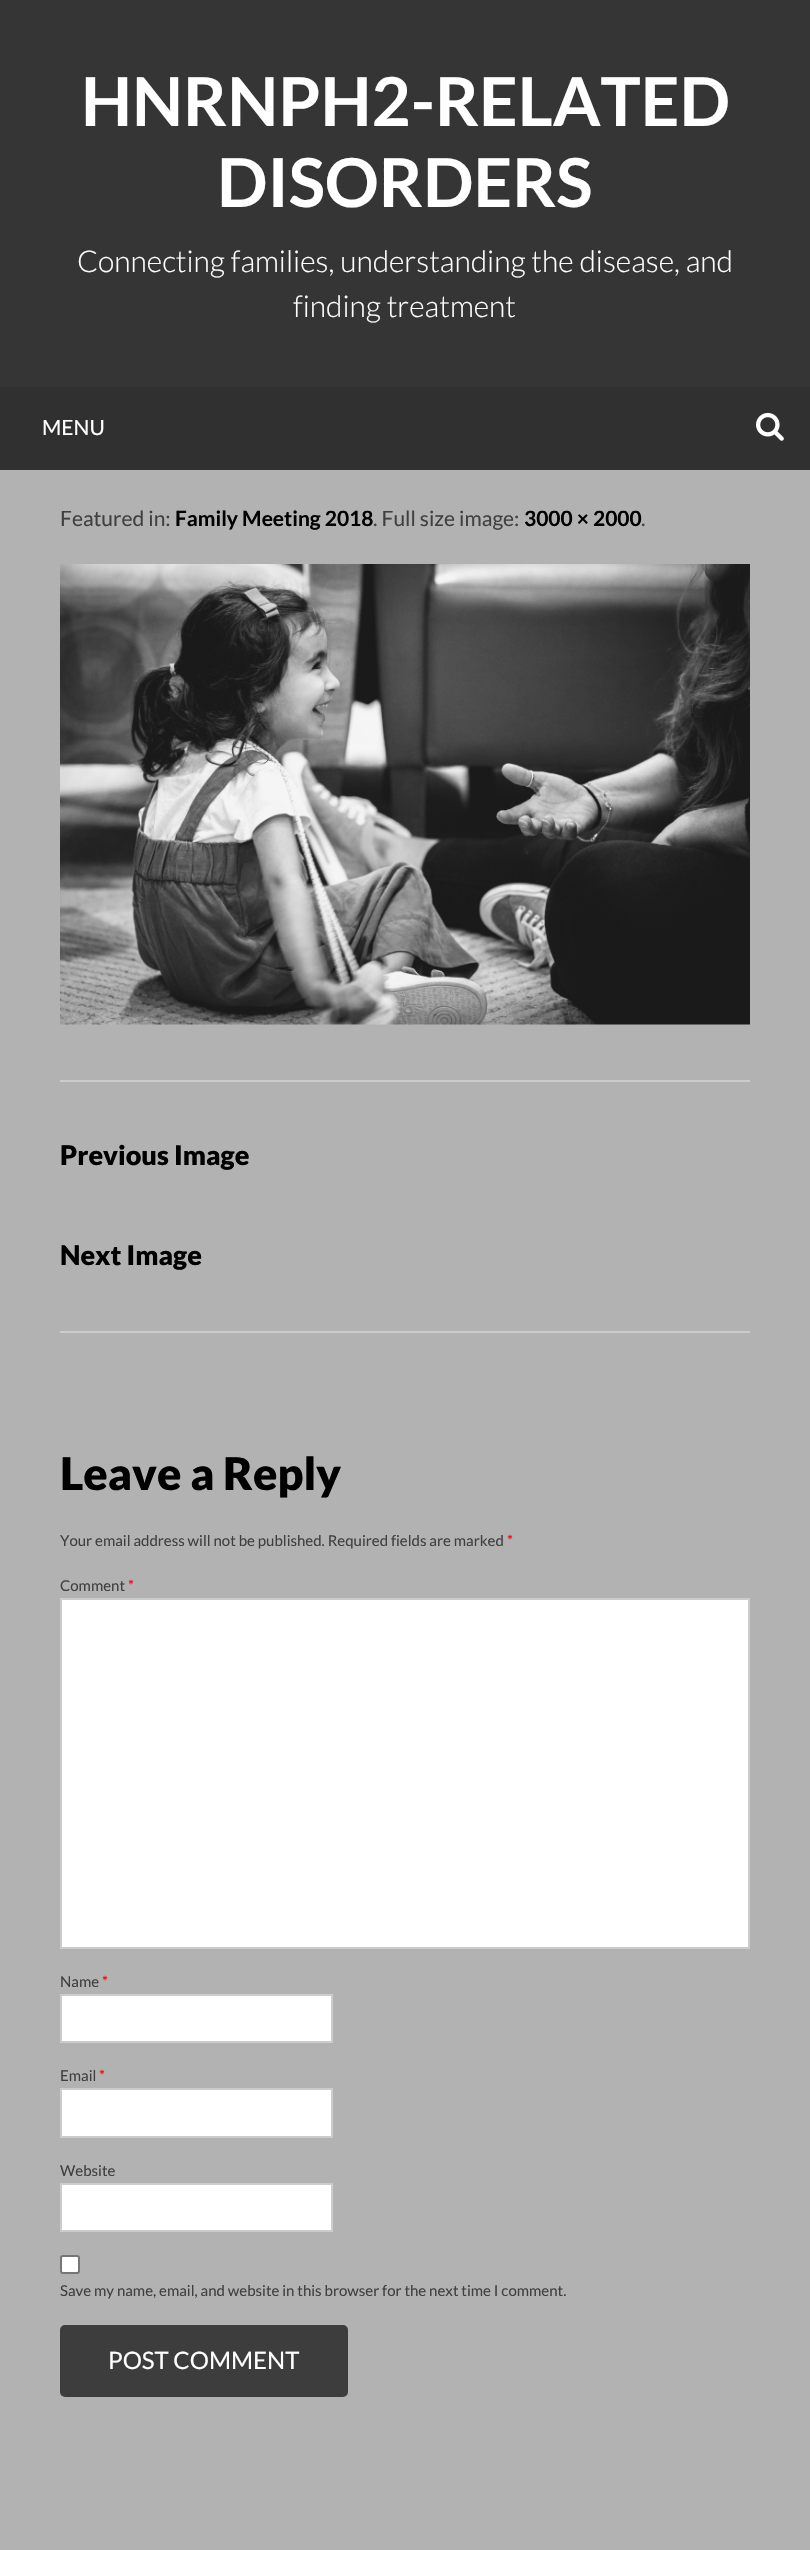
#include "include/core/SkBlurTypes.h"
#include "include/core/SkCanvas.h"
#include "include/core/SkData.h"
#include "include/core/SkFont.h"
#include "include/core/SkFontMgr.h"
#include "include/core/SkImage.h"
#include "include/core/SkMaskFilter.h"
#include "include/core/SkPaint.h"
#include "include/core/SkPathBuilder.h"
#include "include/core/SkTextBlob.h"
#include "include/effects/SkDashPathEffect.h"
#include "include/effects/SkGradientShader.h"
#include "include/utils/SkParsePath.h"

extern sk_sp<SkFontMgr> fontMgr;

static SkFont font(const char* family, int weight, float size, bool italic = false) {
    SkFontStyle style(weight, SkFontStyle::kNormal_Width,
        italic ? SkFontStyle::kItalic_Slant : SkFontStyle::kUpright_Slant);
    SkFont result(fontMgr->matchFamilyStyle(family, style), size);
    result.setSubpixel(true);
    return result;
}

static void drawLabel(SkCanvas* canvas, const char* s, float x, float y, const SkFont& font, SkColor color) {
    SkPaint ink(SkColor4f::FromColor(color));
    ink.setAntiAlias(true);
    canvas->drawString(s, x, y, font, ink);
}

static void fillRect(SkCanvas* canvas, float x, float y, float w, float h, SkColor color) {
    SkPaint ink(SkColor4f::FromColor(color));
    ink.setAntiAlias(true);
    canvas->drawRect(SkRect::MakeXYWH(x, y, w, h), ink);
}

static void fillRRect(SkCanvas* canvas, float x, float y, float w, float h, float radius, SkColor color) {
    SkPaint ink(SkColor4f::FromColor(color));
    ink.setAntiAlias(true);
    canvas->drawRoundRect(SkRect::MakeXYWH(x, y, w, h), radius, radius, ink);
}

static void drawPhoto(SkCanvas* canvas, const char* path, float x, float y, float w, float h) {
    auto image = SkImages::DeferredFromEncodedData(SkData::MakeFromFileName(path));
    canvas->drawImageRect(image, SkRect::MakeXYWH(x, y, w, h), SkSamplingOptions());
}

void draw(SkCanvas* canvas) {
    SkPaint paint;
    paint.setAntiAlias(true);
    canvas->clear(0xFFB2B2B2);
    fillRect(canvas, 0, 0, 810, 387, 0xFF353535);
    SkFont font1 = font("Lato", 700, 67.5f);
    drawLabel(canvas, "HNRNPH2-RELATED", 81, 126, font1, 0xFFFFFFFF);
    drawLabel(canvas, "DISORDERS", 217, 207, font1, 0xFFFFFFFF);
    SkFont font2 = font("Lato", 300, 30);
    drawLabel(canvas, "Connecting families, understanding the disease, and", 77, 272, font2, 0xFFFFFFFF);
    drawLabel(canvas, "finding treatment", 293, 317, font2, 0xFFFFFFFF);
    fillRect(canvas, 0, 387, 810, 83, 0xFF303030);
    SkFont font3 = font("Lato", 400, 21);
    drawLabel(canvas, "MENU", 42, 435, font3, 0xFFFFFFFF);
    drawPhoto(canvas, "assets/img1.png", 756, 412, 28, 29);
    drawLabel(canvas, "Featured in:", 60, 526, font3, 0xFF404040);
    SkFont font4 = font("Lato", 700, 21);
    drawLabel(canvas, "Family Meeting 2018", 175, 526, font4, 0xFF000000);
    drawLabel(canvas, ". Full size image:", 373, 526, font3, 0xFF404040);
    drawLabel(canvas, "3000 × 2000", 524, 526, font4, 0xFF000000);
    drawLabel(canvas, ".", 641, 526, font3, 0xFF404040);
    drawPhoto(canvas, "assets/img2.png", 60, 564, 690, 461);
    fillRect(canvas, 60, 1080, 690, 2, 0xFFCCCCCC);
    fillRect(canvas, 60, 1331, 690, 2, 0xFFCCCCCC);
    SkFont font5 = font("Lato", 900, 27);
    drawLabel(canvas, "Previous Image", 60, 1165, font5, 0xFF000000);
    drawLabel(canvas, "Next Image", 60, 1265, font5, 0xFF000000);
    SkFont font6 = font("Lato", 900, 45);
    drawLabel(canvas, "Leave a Reply", 60, 1490, font6, 0xFF000000);
    SkFont font7 = font("Lato", 400, 15);
    drawLabel(canvas, "Your email address will not be published. Required fields are marked", 60, 1546, font7, 0xFF404040);
    drawLabel(canvas, "*", 507, 1546, font7, 0xFFFF0000);
    drawLabel(canvas, "Comment", 60, 1591, font7, 0xFF404040);
    drawLabel(canvas, "*", 128, 1591, font7, 0xFFFF0000);
    paint.setColor(0xFFFFFFFF);
    canvas->drawRect(SkRect::MakeXYWH(61, 1599, 688, 349), paint);
    paint.setStroke(true);
    paint.setStrokeWidth(2);
    paint.setColor(0xFFCCCCCC);
    canvas->drawRect(SkRect::MakeXYWH(61, 1599, 688, 349), paint);
    drawLabel(canvas, "Name", 60, 1987, font7, 0xFF404040);
    drawLabel(canvas, "*", 102, 1987, font7, 0xFFFF0000);
    paint.setStroke(false);
    paint.setColor(0xFFFFFFFF);
    canvas->drawRect(SkRect::MakeXYWH(61, 1995, 271, 47), paint);
    paint.setStroke(true);
    paint.setColor(0xFFCCCCCC);
    canvas->drawRect(SkRect::MakeXYWH(61, 1995, 271, 47), paint);
    drawLabel(canvas, "Email", 60, 2081, font7, 0xFF404040);
    drawLabel(canvas, "*", 99, 2081, font7, 0xFFFF0000);
    paint.setStroke(false);
    paint.setColor(0xFFFFFFFF);
    canvas->drawRect(SkRect::MakeXYWH(61, 2089, 271, 48), paint);
    paint.setStroke(true);
    paint.setColor(0xFFCCCCCC);
    canvas->drawRect(SkRect::MakeXYWH(61, 2089, 271, 48), paint);
    drawLabel(canvas, "Website", 60, 2176, font7, 0xFF404040);
    paint.setStroke(false);
    paint.setColor(0xFFFFFFFF);
    canvas->drawRect(SkRect::MakeXYWH(61, 2184, 271, 47), paint);
    paint.setStroke(true);
    paint.setColor(0xFFCCCCCC);
    canvas->drawRect(SkRect::MakeXYWH(61, 2184, 271, 47), paint);
    paint.setStroke(false);
    paint.setColor(0xFFFFFFFF);
    canvas->drawRoundRect(SkRect::MakeXYWH(61, 2256, 18, 17), 2, 2, paint);
    paint.setStroke(true);
    paint.setColor(0xFF767676);
    canvas->drawRoundRect(SkRect::MakeXYWH(61, 2256, 18, 17), 2, 2, paint);
    drawLabel(canvas, "Save my name, email, and website in this browser for the next time I comment.", 60, 2296, font7, 0xFF404040);
    fillRRect(canvas, 60, 2325, 288, 72, 5, 0xFF3D3D3D);
    SkFont font8 = font("Lato", 400, 24);
    drawLabel(canvas, "POST COMMENT", 108, 2369, font8, 0xFFFFFFFF);
}
